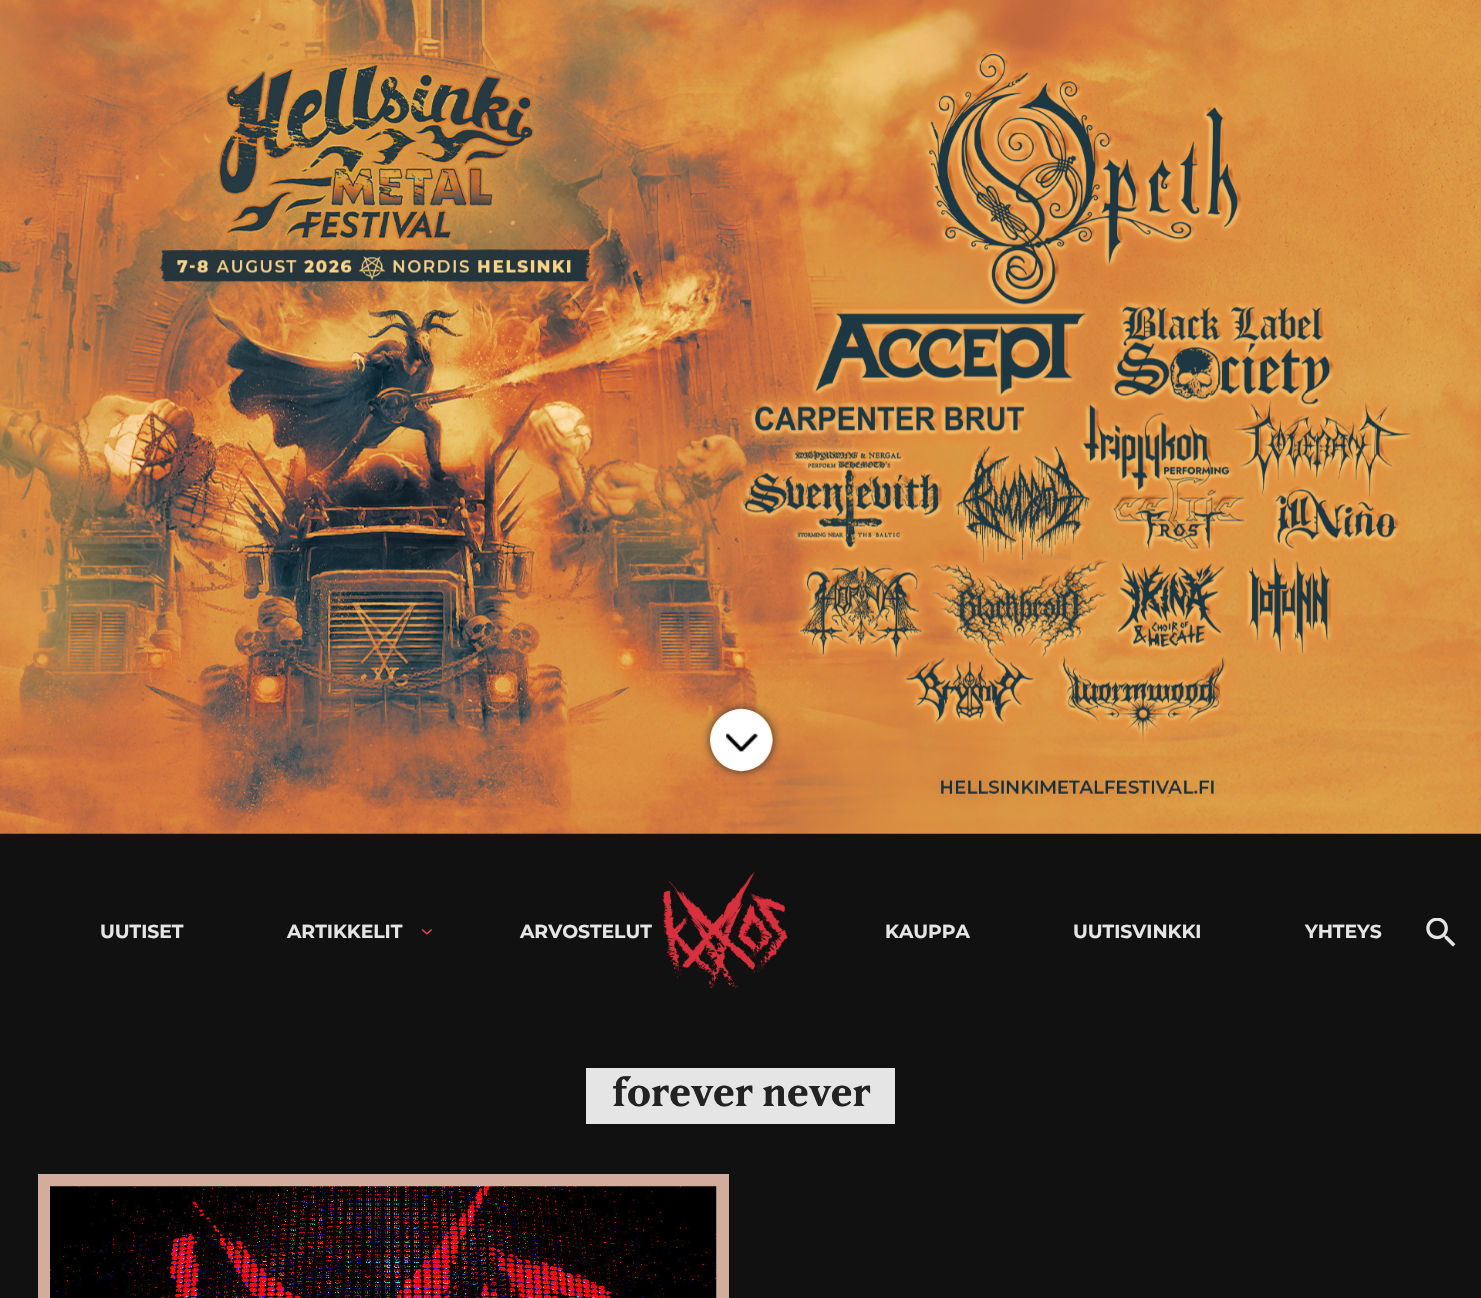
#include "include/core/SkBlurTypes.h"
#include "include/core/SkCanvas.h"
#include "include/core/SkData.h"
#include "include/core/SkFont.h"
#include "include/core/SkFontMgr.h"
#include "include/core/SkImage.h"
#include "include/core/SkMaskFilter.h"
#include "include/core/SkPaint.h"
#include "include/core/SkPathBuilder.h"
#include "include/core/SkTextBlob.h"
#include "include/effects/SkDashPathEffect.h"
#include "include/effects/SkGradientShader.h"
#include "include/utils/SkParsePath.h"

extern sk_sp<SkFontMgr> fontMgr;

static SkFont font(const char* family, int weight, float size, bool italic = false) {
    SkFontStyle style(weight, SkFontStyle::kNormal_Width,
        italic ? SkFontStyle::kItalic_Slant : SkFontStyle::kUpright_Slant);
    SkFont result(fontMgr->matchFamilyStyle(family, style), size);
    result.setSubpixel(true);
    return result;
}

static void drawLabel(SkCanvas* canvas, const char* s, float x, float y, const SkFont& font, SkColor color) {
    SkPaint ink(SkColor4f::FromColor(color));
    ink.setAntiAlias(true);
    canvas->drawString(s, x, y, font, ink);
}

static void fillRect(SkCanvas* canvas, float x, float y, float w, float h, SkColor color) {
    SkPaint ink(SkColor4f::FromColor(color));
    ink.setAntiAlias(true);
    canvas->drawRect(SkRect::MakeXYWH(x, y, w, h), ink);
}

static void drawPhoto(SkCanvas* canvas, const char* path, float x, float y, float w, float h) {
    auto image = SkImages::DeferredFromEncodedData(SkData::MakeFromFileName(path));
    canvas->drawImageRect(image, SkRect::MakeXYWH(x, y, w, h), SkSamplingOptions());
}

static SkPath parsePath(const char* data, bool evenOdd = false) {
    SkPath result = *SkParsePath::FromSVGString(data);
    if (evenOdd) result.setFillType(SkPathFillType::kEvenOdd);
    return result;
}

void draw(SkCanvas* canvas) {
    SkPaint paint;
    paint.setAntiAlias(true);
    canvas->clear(0xFF111111);
    drawPhoto(canvas, "assets/img1.png", 0, 0, 1481, 834);
    canvas->save();
    canvas->clipPath(parsePath("M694 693H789V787H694ZM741 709H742C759 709 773 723 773 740C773 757 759 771 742 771H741C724 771 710 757 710 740C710 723 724 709 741 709Z", true), true);
    paint.setColor(0xFF333333);
    paint.setMaskFilter(SkMaskFilter::MakeBlur(kNormal_SkBlurStyle, 5));
    canvas->drawRoundRect(SkRect::MakeXYWH(710, 709, 63, 62), 31, 31, paint);
    paint.setMaskFilter(nullptr);
    canvas->restore();
    drawPhoto(canvas, "assets/img2.png", 710, 708, 63, 64);
    drawPhoto(canvas, "assets/img5.png", 676, 929, 5, 5);
    drawPhoto(canvas, "assets/img3.png", 662, 871, 126, 118);
    SkFont font1 = font("Montserrat", 700, 18.75f);
    drawLabel(canvas, "UUTISET", 100, 938, font1, 0xFFE5E5E5);
    drawLabel(canvas, "ARTIKKELIT", 287, 938, font1, 0xFFE5E5E5);
    drawPhoto(canvas, "assets/img4.png", 421, 929, 11, 6);
    drawLabel(canvas, "ARVOSTELUT", 520, 938, font1, 0xFFE5E5E5);
    drawLabel(canvas, "KAUPPA", 885, 938, font1, 0xFFE5E5E5);
    drawLabel(canvas, "UUTISVINKKI", 1073, 938, font1, 0xFFE5E5E5);
    drawLabel(canvas, "YHTEYS", 1305, 938, font1, 0xFFE5E5E5);
    drawPhoto(canvas, "assets/img6.png", 1426, 918, 30, 29);
    fillRect(canvas, 586, 1068, 309, 56, 0xFFE5E5E5);
    SkFont font2 = font("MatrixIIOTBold", 700, 39.5f);
    drawLabel(canvas, "forever never", 612, 1106, font2, 0xFF222222);
    fillRect(canvas, 38, 1174, 691, 124, 0xFFD2AD9D);
    drawPhoto(canvas, "assets/img7.png", 50, 1186, 667, 112);
}
